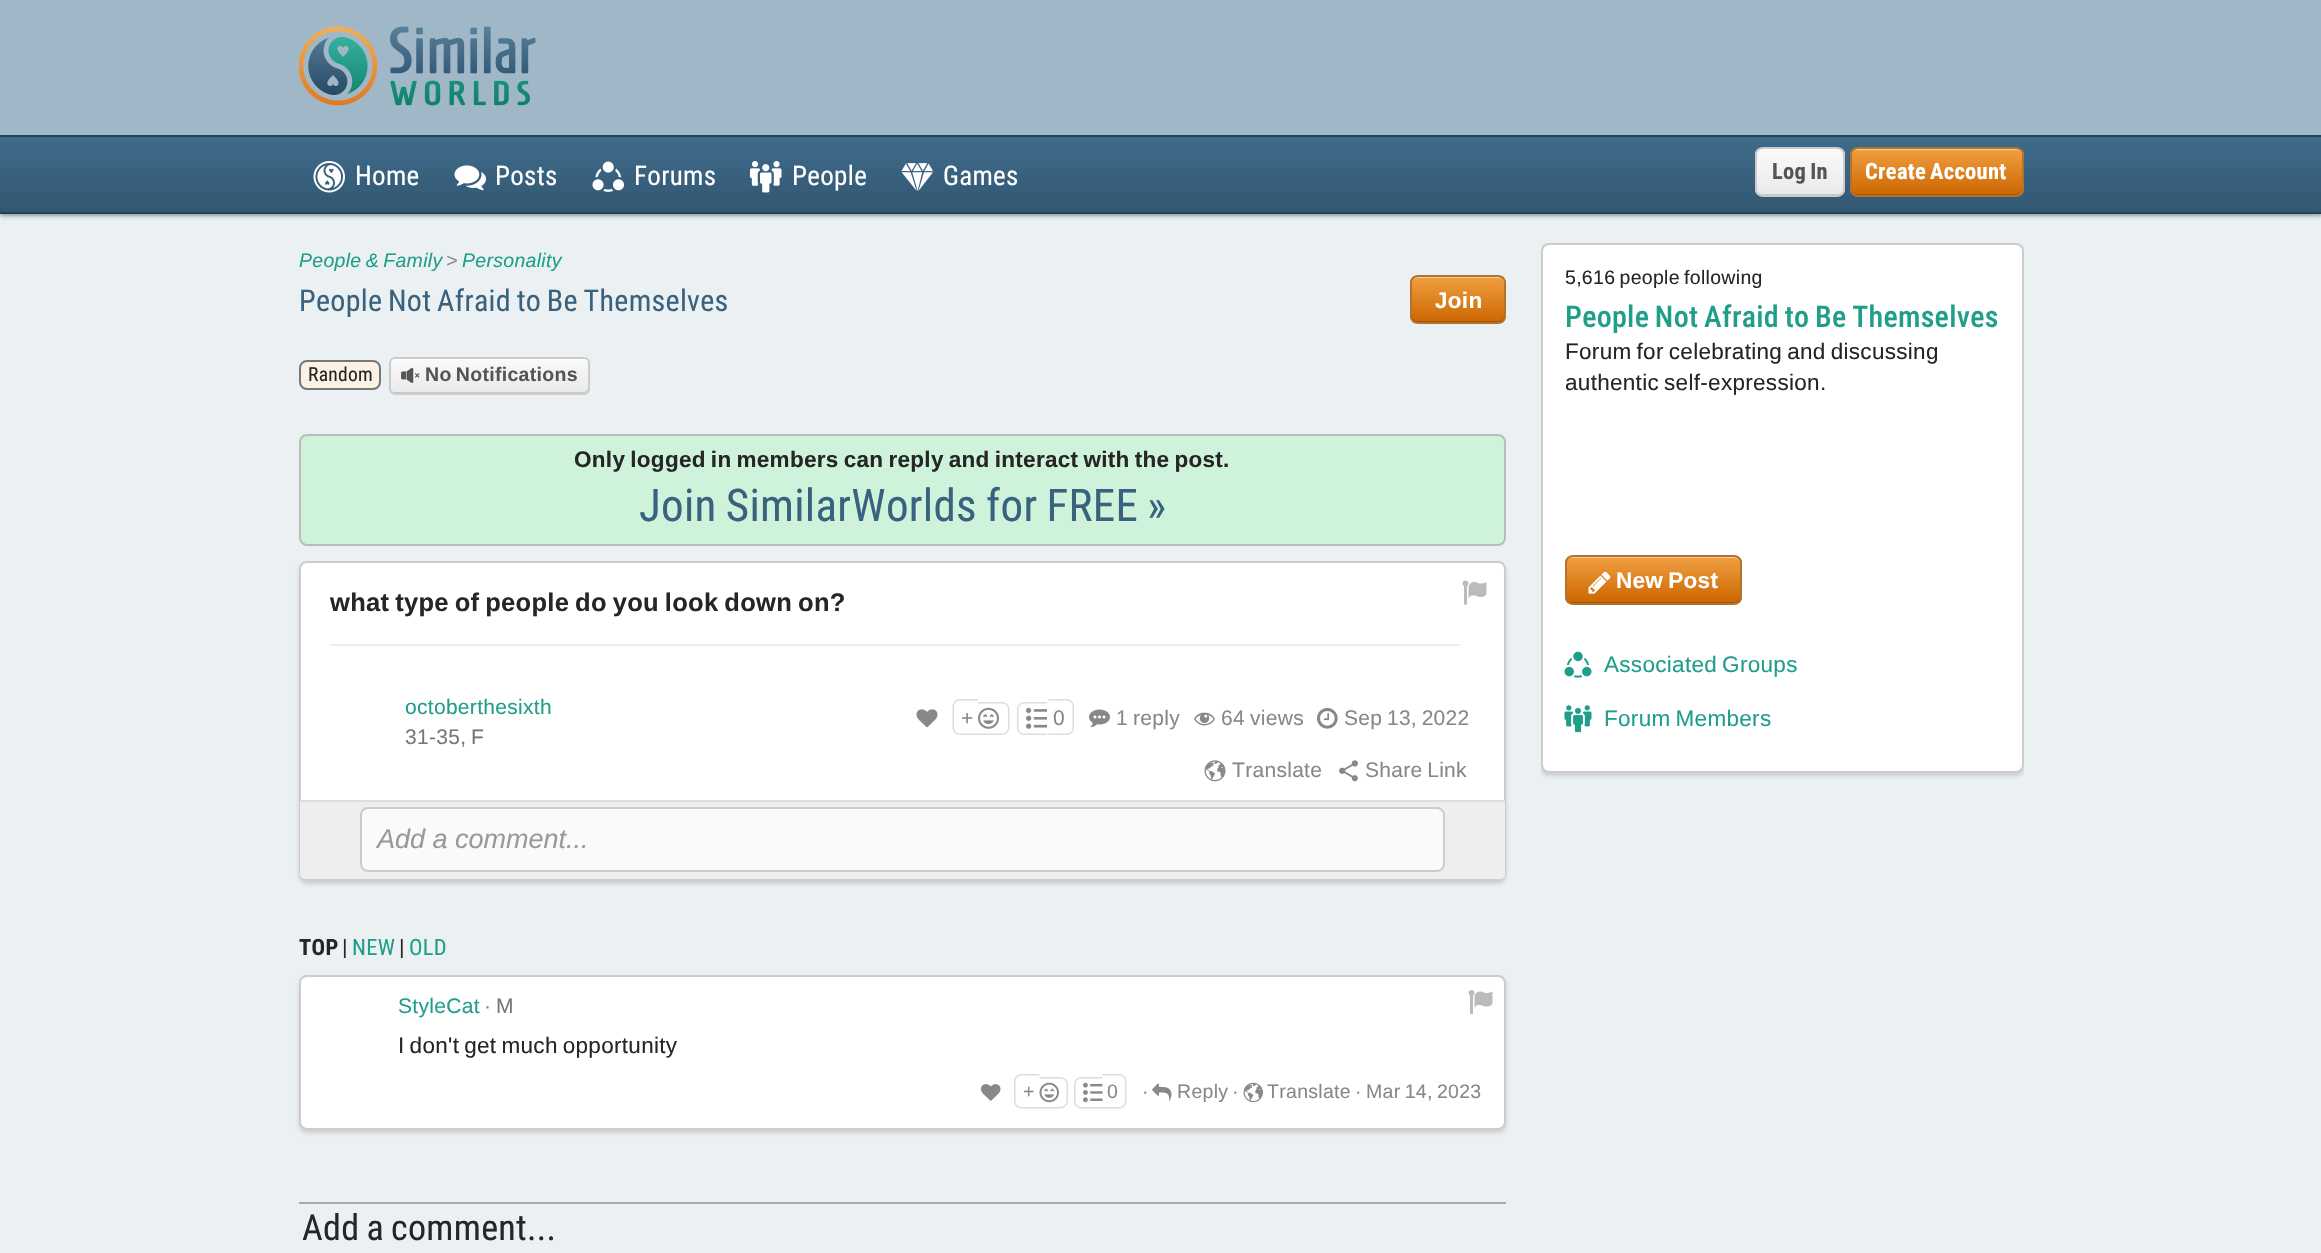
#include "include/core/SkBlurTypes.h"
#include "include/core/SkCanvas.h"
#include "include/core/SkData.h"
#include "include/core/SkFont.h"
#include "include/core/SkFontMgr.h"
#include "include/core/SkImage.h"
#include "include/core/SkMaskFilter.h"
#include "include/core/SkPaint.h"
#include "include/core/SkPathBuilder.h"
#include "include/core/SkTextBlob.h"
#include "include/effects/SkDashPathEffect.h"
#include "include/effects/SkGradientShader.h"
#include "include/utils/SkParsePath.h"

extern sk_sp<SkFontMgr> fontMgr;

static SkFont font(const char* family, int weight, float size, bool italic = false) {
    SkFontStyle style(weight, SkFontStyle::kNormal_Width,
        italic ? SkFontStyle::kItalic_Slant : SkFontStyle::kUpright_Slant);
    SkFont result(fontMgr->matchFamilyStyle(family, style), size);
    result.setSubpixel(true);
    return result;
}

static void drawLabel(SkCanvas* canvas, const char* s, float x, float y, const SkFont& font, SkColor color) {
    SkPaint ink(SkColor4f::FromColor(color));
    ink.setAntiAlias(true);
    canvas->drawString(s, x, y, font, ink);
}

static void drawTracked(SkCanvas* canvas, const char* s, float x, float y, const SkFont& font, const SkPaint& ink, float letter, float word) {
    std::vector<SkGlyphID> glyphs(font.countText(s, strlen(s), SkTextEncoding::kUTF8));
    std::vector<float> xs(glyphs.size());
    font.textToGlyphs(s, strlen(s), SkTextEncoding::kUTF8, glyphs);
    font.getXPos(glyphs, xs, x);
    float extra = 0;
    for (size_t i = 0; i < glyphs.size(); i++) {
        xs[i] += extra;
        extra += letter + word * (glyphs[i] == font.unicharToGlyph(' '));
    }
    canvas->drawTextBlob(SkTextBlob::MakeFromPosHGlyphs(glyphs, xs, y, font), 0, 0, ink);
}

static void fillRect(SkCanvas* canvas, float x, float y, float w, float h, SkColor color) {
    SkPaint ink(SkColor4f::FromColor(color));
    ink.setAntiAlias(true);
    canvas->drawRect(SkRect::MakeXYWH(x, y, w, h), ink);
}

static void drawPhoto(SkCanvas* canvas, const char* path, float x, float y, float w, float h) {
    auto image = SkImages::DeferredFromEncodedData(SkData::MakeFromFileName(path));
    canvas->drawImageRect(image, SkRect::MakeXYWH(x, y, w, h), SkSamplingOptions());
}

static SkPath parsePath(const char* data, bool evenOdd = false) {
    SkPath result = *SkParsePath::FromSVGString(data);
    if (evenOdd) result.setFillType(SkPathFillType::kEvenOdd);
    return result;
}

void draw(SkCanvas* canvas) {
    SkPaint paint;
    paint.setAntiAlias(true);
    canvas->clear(0xFFEBF0F2);
    paint.setColor(0x80264459);
    paint.setMaskFilter(SkMaskFilter::MakeBlur(kNormal_SkBlurStyle, 2));
    canvas->drawRect(SkRect::MakeXYWH(0, 138, 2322, 78), paint);
    paint.setMaskFilter(nullptr);
    fillRect(canvas, 0, 0, 2321, 135, 0xFF9FB7C7);
    drawPhoto(canvas, "assets/img1.png", 299, 26, 237, 80);
    {
        const SkColor colors[] = {0xFF3F6C8C, 0xFF325771};
        const float stops[] = {0, 1};
        const SkPoint ends[] = {{1161, 136}, {1161, 212}};
        paint.setShader(SkGradientShader::MakeLinear(ends, colors, stops, 2, SkTileMode::kClamp));
        paint.setAlpha(255);
    }
    canvas->drawRect(SkRect::MakeXYWH(0, 137, 2321, 75), paint);
    fillRect(canvas, 0, 135, 2321, 2, 0xFF1F425C);
    fillRect(canvas, 0, 212, 2321, 2, 0xFF1F425C);
    drawPhoto(canvas, "assets/img2.png", 313, 161, 32, 32);
    SkFont font1 = font("Roboto Condensed", 400, 27);
    paint.setShader(nullptr);
    paint.setColor(0xFFFFFFFF);
    drawTracked(canvas, "Home", 355, 185, font1, paint, 0.3f, 0);
    drawPhoto(canvas, "assets/img3.png", 454, 165, 32, 26);
    drawTracked(canvas, "Posts", 495, 185, font1, paint, 0.3f, 0);
    drawPhoto(canvas, "assets/img4.png", 592, 161, 32, 31);
    drawTracked(canvas, "Forums", 634, 185, font1, paint, 0.3f, 0);
    drawPhoto(canvas, "assets/img5.png", 750, 161, 32, 32);
    drawTracked(canvas, "People", 792, 185, font1, paint, 0.3f, 0);
    drawPhoto(canvas, "assets/img6.png", 901, 163, 32, 28);
    drawTracked(canvas, "Games", 943, 185, font1, paint, 0.3f, 0);
    canvas->save();
    canvas->clipPath(parsePath("M1763 147H1837C1841.5 147 1845 150.5 1845 155V189C1845 193.5 1841.5 197 1837 197H1763C1758.5 197 1755 193.5 1755 189V155C1755 150.5 1758.5 147 1763 147Z"), true);
    {
        const SkColor colors[] = {0xFFFAFAFA, 0xFFEAEAEA};
        const float stops[] = {0, 1};
        const SkPoint ends[] = {{1800, 149}, {1800, 195}};
        paint.setShader(SkGradientShader::MakeLinear(ends, colors, stops, 2, SkTileMode::kClamp));
        paint.setAlpha(255);
    }
    canvas->drawRect(SkRect::MakeXYWH(1755, 149, 90, 46), paint);
    canvas->restore();
    paint.setShader(nullptr);
    paint.setColor(0xFFC7C7C7);
    canvas->drawPath(parsePath("M1758 192C1759 194 1761 195 1763 195H1838C1841 195 1844 192 1844 189V188C1844 191 1841 194 1838 194H1762C1761 194 1759 193 1758 192Z"), paint);
    paint.setColor(0xFFFFFFFF);
    canvas->drawPath(parsePath("M1762 150H1838C1841 150 1844 153 1844 156V155C1844 152 1841 149 1838 149H1763C1761 149 1759 150 1758 152C1759 151 1761 150 1762 150Z"), paint);
    paint.setStroke(true);
    paint.setStrokeWidth(2);
    paint.setColor(0xFFCCCCCC);
    canvas->drawRoundRect(SkRect::MakeXYWH(1756, 148, 88, 48), 7, 7, paint);
    SkFont font2 = font("Roboto Condensed", 700, 22.5f);
    paint.setStroke(false);
    paint.setColor(0xFF555555);
    drawTracked(canvas, "Log In", 1772, 179, font2, paint, 0.3f, -1.5f);
    canvas->save();
    canvas->clipPath(parsePath("M1858 147H2016C2020.5 147 2024 150.5 2024 155V189C2024 193.5 2020.5 197 2016 197H1858C1853.5 197 1850 193.5 1850 189V155C1850 150.5 1853.5 147 1858 147Z"), true);
    {
        const SkColor colors[] = {0xFFF09F42, 0xFFCC6600};
        const float stops[] = {0, 1};
        const SkPoint ends[] = {{1937, 149}, {1937, 195}};
        paint.setShader(SkGradientShader::MakeLinear(ends, colors, stops, 2, SkTileMode::kClamp));
        paint.setAlpha(255);
    }
    canvas->drawRect(SkRect::MakeXYWH(1850, 149, 174, 46), paint);
    canvas->restore();
    paint.setShader(nullptr);
    paint.setColor(0x33000000);
    canvas->drawPath(parsePath("M1851 188V189C1851 192 1854 195 1857 195H2016C2019 195 2022 192 2022 189V188C2022 191 2019 194 2016 194H1857C1854 194 1851 191 1851 188Z"), paint);
    paint.setColor(0x80FFFFFF);
    canvas->drawPath(parsePath("M1857 150H2016C2019 150 2022 153 2022 156V155C2022 152 2019 149 2016 149H1857C1854 149 1851 152 1851 155V156C1851 153 1854 150 1857 150Z"), paint);
    paint.setStroke(true);
    paint.setColor(0xFFB2742C);
    canvas->drawRoundRect(SkRect::MakeXYWH(1851, 148, 172, 48), 7, 7, paint);
    paint.setStroke(false);
    paint.setColor(0xFFFFFFFF);
    drawTracked(canvas, "Create Account", 1865, 179, font2, paint, 0.3f, -1.5f);
    SkFont font3 = font("Liberation Sans", 400, 19.5f, true);
    paint.setColor(0xFF1F9E89);
    drawTracked(canvas, "People & Family", 299, 267, font3, paint, 0.3f, -1.5f);
    paint.setColor(0xFF888888);
    drawTracked(canvas, ">", 446, 267, font3, paint, 0.3f, 0);
    paint.setColor(0xFF1F9E89);
    drawTracked(canvas, "Personality", 462, 267, font3, paint, 0.3f, 0);
    SkFont font4 = font("Roboto Condensed", 400, 30);
    paint.setColor(0xFF39627F);
    drawTracked(canvas, "People Not Afraid to Be Themselves", 299, 311, font4, paint, 0.3f, -1.5f);
    canvas->save();
    canvas->clipPath(parsePath("M1418 275H1498C1502.5 275 1506 278.5 1506 283V316C1506 320.5 1502.5 324 1498 324H1418C1413.5 324 1410 320.5 1410 316V283C1410 278.5 1413.5 275 1418 275Z"), true);
    {
        const SkColor colors[] = {0xFFF09F42, 0xFFCC6600};
        const float stops[] = {0, 1};
        const SkPoint ends[] = {{1458, 276}, {1458, 323}};
        paint.setShader(SkGradientShader::MakeLinear(ends, colors, stops, 2, SkTileMode::kClamp));
        paint.setAlpha(255);
    }
    canvas->drawRect(SkRect::MakeXYWH(1410, 276, 96, 47), paint);
    canvas->restore();
    paint.setShader(nullptr);
    paint.setColor(0x33000000);
    canvas->drawPath(parsePath("M1412 315V317C1412 320 1415 323 1418 323H1499C1502 323 1505 320 1505 317V282C1505 281 1505 279 1504 278V303C1504 308 1507 321 1498 321H1417C1414 320 1412 318 1412 315Z"), paint);
    paint.setColor(0x80FFFFFF);
    canvas->drawPath(parsePath("M1418 278H1498C1502 278 1504 280 1504 284V318C1504 319 1504 320 1503 321C1504 320 1505 319 1505 317V282C1505 279 1502 276 1499 276H1418C1415 276 1412 279 1412 282V284C1412 280 1414 278 1418 278Z"), paint);
    paint.setStroke(true);
    paint.setColor(0xFFB2742C);
    canvas->drawRoundRect(SkRect::MakeXYWH(1411, 276, 94, 47), 7, 7, paint);
    SkFont font5 = font("Liberation Sans", 700, 22.5f);
    paint.setStroke(false);
    paint.setColor(0xFFFFFFFF);
    drawTracked(canvas, "Join", 1435, 308, font5, paint, 0.3f, 0);
    paint.setColor(0xFFFCF2E3);
    canvas->drawRoundRect(SkRect::MakeXYWH(300, 361, 80, 28), 7, 7, paint);
    paint.setStroke(true);
    paint.setColor(0xFF777777);
    canvas->drawRoundRect(SkRect::MakeXYWH(300, 361, 80, 28), 7, 7, paint);
    SkFont font6 = font("Roboto Condensed", 400, 19.5f);
    paint.setStroke(false);
    paint.setColor(0xFF262626);
    drawTracked(canvas, "Random", 308, 381, font6, paint, 0.3f, 0);
    canvas->save();
    canvas->clipPath(parsePath("M395 357H584C587.5 357 590 359.5 590 363V389C590 392.5 587.5 395 584 395H395C391.5 395 389 392.5 389 389V363C389 359.5 391.5 357 395 357Z"), true);
    {
        const SkColor colors[] = {0xFFFAFAFA, 0xFFEAEAEA};
        const float stops[] = {0, 1};
        const SkPoint ends[] = {{489, 359}, {489, 393}};
        paint.setShader(SkGradientShader::MakeLinear(ends, colors, stops, 2, SkTileMode::kClamp));
        paint.setAlpha(255);
    }
    canvas->drawRect(SkRect::MakeXYWH(389, 359, 201, 34), paint);
    canvas->restore();
    paint.setShader(nullptr);
    paint.setColor(0xFFC7C7C7);
    canvas->drawPath(parsePath("M390 387V388C390 391 392 393 395 393H583C586 393 588 391 588 388V387C588 389 586 392 584 392H394C392 392 390 389 390 387Z"), paint);
    paint.setColor(0xFFFFFFFF);
    canvas->drawPath(parsePath("M394 360H584C586 360 588 362 588 364C588 361 586 359 583 359H395C392 359 390 361 390 364C390 362 392 360 394 360Z"), paint);
    paint.setStroke(true);
    paint.setColor(0xFFCCCCCC);
    canvas->drawRoundRect(SkRect::MakeXYWH(390, 358, 199, 36), 5, 5, paint);
    drawPhoto(canvas, "assets/img7.png", 401, 367, 19, 16);
    SkFont font7 = font("Liberation Sans", 700, 19.5f);
    paint.setStroke(false);
    paint.setColor(0xFF555555);
    drawTracked(canvas, "No Notifications", 425, 381, font7, paint, 0.3f, -1.5f);
    paint.setColor(0xFFCEF3DA);
    canvas->drawRoundRect(SkRect::MakeXYWH(300, 435, 1205, 110), 7, 7, paint);
    paint.setStroke(true);
    paint.setColor(0xFFBBBBBB);
    canvas->drawRoundRect(SkRect::MakeXYWH(300, 435, 1205, 110), 7, 7, paint);
    paint.setStroke(false);
    paint.setColor(0xFF262626);
    drawTracked(canvas, "Only logged in members can reply and interact with the post.", 574, 467, font5, paint, 0.3f, -1.5f);
    SkFont font8 = font("Roboto Condensed", 400, 45);
    paint.setColor(0xFF39627F);
    drawTracked(canvas, "Join SimilarWorlds for FREE »", 639, 521, font8, paint, 0.3f, -1.5f);
    paint.setColor(0x4D808080);
    paint.setMaskFilter(SkMaskFilter::MakeBlur(kNormal_SkBlurStyle, 2));
    canvas->drawRoundRect(SkRect::MakeXYWH(299, 564, 1207, 320), 8, 8, paint);
    paint.setMaskFilter(nullptr);
    paint.setColor(0xFFFFFFFF);
    canvas->drawRoundRect(SkRect::MakeXYWH(300, 562, 1205, 318), 7, 7, paint);
    paint.setStroke(true);
    paint.setColor(0xFFCCCCCC);
    canvas->drawRoundRect(SkRect::MakeXYWH(300, 562, 1205, 318), 7, 7, paint);
    fillRect(canvas, 330, 644, 1130, 2, 0xFFEEEEEE);
    SkFont font9 = font("Liberation Sans", 700, 25.5f);
    paint.setStroke(false);
    paint.setColor(0xFF262626);
    drawTracked(canvas, "what type of people do you look down on?", 330, 611, font9, paint, 0.3f, -1.5f);
    SkFont font10 = font("Liberation Sans", 400, 21);
    paint.setColor(0xFF1F9E89);
    drawTracked(canvas, "octoberthesixth", 405, 714, font10, paint, 0.3f, 0);
    paint.setColor(0xFF777777);
    drawTracked(canvas, "31-35, F", 405, 744, font10, paint, 0.3f, -1.5f);
    drawPhoto(canvas, "assets/img8.png", 1462, 580, 25, 25);
    drawPhoto(canvas, "assets/img9.png", 916, 709, 22, 19);
    paint.setColor(0xFFDDDDDD);
    canvas->drawPath(parsePath("M960 699H978V735H960C956 735 952.5 731.5 952.5 727.5V706.5C952.5 702.5 956 699 960 699ZM960 700.5H978V733.5H960C956.5 733.5 954 731 954 727.5V706.5C954 703 956.5 700.5 960 700.5ZM978 702H1002C1006 702 1009.5 705.5 1009.5 709.5V727.5C1009.5 731.5 1006 735 1002 735H978ZM978 703.5H1002C1005.5 703.5 1008 706 1008 709.5V727.5C1008 731 1005.5 733.5 1002 733.5H978Z", true), paint);
    paint.setColor(0xFF888888);
    drawTracked(canvas, "+", 961, 725, font10, paint, 0.3f, 0);
    drawPhoto(canvas, "assets/img10.png", 978, 707, 21, 22);
    paint.setColor(0xFFDDDDDD);
    canvas->drawPath(parsePath("M1024.5 702H1047V735H1024.5C1020.5 735 1017 731.5 1017 727.5V709.5C1017 705.5 1020.5 702 1024.5 702ZM1024.5 703.5H1047V733.5H1024.5C1021 733.5 1018.5 731 1018.5 727.5V709.5C1018.5 706 1021 703.5 1024.5 703.5ZM1048.5 699H1066.5C1070.5 699 1074 702.5 1074 706.5V727.5C1074 731.5 1070.5 735 1066.5 735H1048.5ZM1048.5 700.5H1066.5C1070 700.5 1072.5 703 1072.5 706.5V727.5C1072.5 731 1070 733.5 1066.5 733.5H1048.5Z", true), paint);
    drawPhoto(canvas, "assets/img11.png", 1026, 707, 21, 22);
    paint.setColor(0xFF888888);
    drawTracked(canvas, "0", 1053, 725, font10, paint, 0.3f, 0);
    drawPhoto(canvas, "assets/img12.png", 1089, 709, 21, 19);
    drawTracked(canvas, "1", 1116, 725, font10, paint, 0.3f, 0);
    drawTracked(canvas, "reply", 1133, 725, font10, paint, 0.3f, 0);
    drawPhoto(canvas, "assets/img13.png", 1194, 712, 21, 14);
    drawTracked(canvas, "64", 1221, 725, font10, paint, 0.3f, 0);
    drawTracked(canvas, "views", 1250, 725, font10, paint, 0.3f, 0);
    drawPhoto(canvas, "assets/img14.png", 1317, 708, 21, 21);
    drawTracked(canvas, "Sep 13, 2022", 1344, 725, font10, paint, 0.3f, -1.5f);
    drawPhoto(canvas, "assets/img15.png", 1204, 760, 22, 22);
    drawTracked(canvas, "Translate", 1232, 777, font10, paint, 0.3f, 0);
    drawPhoto(canvas, "assets/img16.png", 1339, 760, 19, 22);
    drawTracked(canvas, "Share Link", 1365, 777, font10, paint, 0.3f, -1.5f);
    paint.setColor(0xFFEEEEEE);
    canvas->drawPath(parsePath("M300 800H1505V874C1505 877 1503 879 1500 879H305C302 879 300 877 300 874Z"), paint);
    fillRect(canvas, 300, 800, 1205, 2, 0xFFDDDDDD);
    paint.setColor(0xFFFAFAFA);
    canvas->drawRoundRect(SkRect::MakeXYWH(361, 808, 1083, 63), 7, 7, paint);
    paint.setStroke(true);
    paint.setColor(0xFFCCCCCC);
    canvas->drawRoundRect(SkRect::MakeXYWH(361, 808, 1083, 63), 7, 7, paint);
    SkFont font11 = font("Liberation Sans", 400, 27, true);
    drawLabel(canvas, "Add a comment...", 377, 848, font11, 0xFF999999);
    paint.setStroke(false);
    paint.setColor(0xFF262626);
    drawTracked(canvas, "TOP", 299, 955, font2, paint, 0.3f, 0);
    SkFont font12 = font("Roboto Condensed", 400, 22.5f);
    drawTracked(canvas, "|", 342, 955, font12, paint, 0.3f, 0);
    paint.setColor(0xFF1F9E89);
    drawTracked(canvas, "NEW", 352, 955, font12, paint, 0.3f, 0);
    paint.setColor(0xFF262626);
    drawTracked(canvas, "|", 399, 955, font12, paint, 0.3f, 0);
    paint.setColor(0xFF1F9E89);
    drawTracked(canvas, "OLD", 409, 955, font12, paint, 0.3f, 0);
    paint.setColor(0x4D808080);
    paint.setMaskFilter(SkMaskFilter::MakeBlur(kNormal_SkBlurStyle, 2));
    canvas->drawRoundRect(SkRect::MakeXYWH(299, 978, 1207, 155), 8, 8, paint);
    paint.setMaskFilter(nullptr);
    paint.setColor(0xFFFFFFFF);
    canvas->drawRoundRect(SkRect::MakeXYWH(300, 976, 1205, 153), 7, 7, paint);
    paint.setStroke(true);
    paint.setColor(0xFFCCCCCC);
    canvas->drawRoundRect(SkRect::MakeXYWH(300, 976, 1205, 153), 7, 7, paint);
    paint.setStroke(false);
    paint.setColor(0xFF1F9E89);
    drawTracked(canvas, "StyleCat", 398, 1013, font10, paint, 0.3f, 0);
    paint.setColor(0xFF888888);
    drawTracked(canvas, "·", 484, 1013, font10, paint, 0.3f, 0);
    paint.setColor(0xFF777777);
    drawTracked(canvas, "M", 496, 1013, font10, paint, 0.3f, 0);
    SkFont font13 = font("Liberation Sans", 400, 22.5f);
    paint.setColor(0xFF262626);
    drawTracked(canvas, "I don't get much opportunity", 398, 1053, font13, paint, 0.3f, -1.5f);
    drawPhoto(canvas, "assets/img17.png", 1468, 990, 25, 24);
    drawPhoto(canvas, "assets/img18.png", 981, 1084, 20, 17);
    paint.setColor(0xFFDDDDDD);
    canvas->drawPath(parsePath("M1021.5 1074H1039.5V1108.5H1021.5C1017.5 1108.5 1014 1105 1014 1101V1081.5C1014 1077.5 1017.5 1074 1021.5 1074ZM1021.5 1075.5H1039.5V1107H1021.5C1018 1107 1015.5 1104.5 1015.5 1101V1081.5C1015.5 1078 1018 1075.5 1021.5 1075.5Z", true), paint);
    canvas->drawPath(parsePath("M1039.5 1077H1060.5C1064.5 1077 1068 1080.5 1068 1084.5V1101C1068 1105 1064.5 1108.5 1060.5 1108.5H1039.5ZM1039.5 1078.5H1060.5C1064 1078.5 1066.5 1081 1066.5 1084.5V1101C1066.5 1104.5 1064 1107 1060.5 1107H1039.5Z", true), paint);
    SkFont font14 = font("Liberation Sans", 400, 19.5f);
    paint.setColor(0xFF888888);
    drawTracked(canvas, "+", 1023, 1098, font14, paint, 0.3f, 0);
    drawPhoto(canvas, "assets/img19.png", 1039, 1082, 20, 21);
    paint.setColor(0xFFDDDDDD);
    canvas->drawPath(parsePath("M1081.5 1077H1102.5V1108.5H1081.5C1077.5 1108.5 1074 1105 1074 1101V1084.5C1074 1080.5 1077.5 1077 1081.5 1077ZM1081.5 1078.5H1102.5V1107H1081.5C1078 1107 1075.5 1104.5 1075.5 1101V1084.5C1075.5 1081 1078 1078.5 1081.5 1078.5Z", true), paint);
    canvas->drawPath(parsePath("M1102.5 1074H1119C1123 1074 1126.5 1077.5 1126.5 1081.5V1101C1126.5 1105 1123 1108.5 1119 1108.5H1102.5ZM1102.5 1075.5H1119C1122.5 1075.5 1125 1078 1125 1081.5V1101C1125 1104.5 1122.5 1107 1119 1107H1102.5Z", true), paint);
    drawPhoto(canvas, "assets/img20.png", 1083, 1082, 20, 21);
    paint.setColor(0xFF888888);
    drawTracked(canvas, "0", 1107, 1098, font14, paint, 0.3f, 0);
    drawTracked(canvas, "·", 1142, 1098, font14, paint, 0.3f, 0);
    drawPhoto(canvas, "assets/img21.png", 1152, 1083, 20, 18);
    drawTracked(canvas, "Reply", 1177, 1098, font14, paint, 0.3f, 0);
    drawTracked(canvas, "·", 1232, 1098, font14, paint, 0.3f, 0);
    drawPhoto(canvas, "assets/img22.png", 1243, 1082, 20, 21);
    drawTracked(canvas, "Translate", 1267, 1098, font14, paint, 0.3f, 0);
    drawTracked(canvas, "·", 1355, 1098, font14, paint, 0.3f, 0);
    drawTracked(canvas, "Mar 14, 2023", 1366, 1098, font14, paint, 0.3f, -1.5f);
    fillRect(canvas, 299, 1202, 1207, 2, 0xFFAAAAAA);
    SkFont font15 = font("Roboto Condensed", 400, 36);
    paint.setColor(0xFF262626);
    drawTracked(canvas, "Add a comment...", 302, 1240, font15, paint, 0.3f, -1.5f);
    canvas->save();
    canvas->clipRect(SkRect::MakeXYWH(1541, 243, 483, 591));
    paint.setColor(0x4D808080);
    paint.setMaskFilter(SkMaskFilter::MakeBlur(kNormal_SkBlurStyle, 2));
    canvas->drawRoundRect(SkRect::MakeXYWH(1541, 246, 483, 530), 8, 8, paint);
    paint.setMaskFilter(nullptr);
    canvas->restore();
    paint.setColor(0xFFFFFFFF);
    canvas->drawRoundRect(SkRect::MakeXYWH(1542, 244, 481, 528), 7, 7, paint);
    paint.setStroke(true);
    paint.setColor(0xFFCCCCCC);
    canvas->drawRoundRect(SkRect::MakeXYWH(1542, 244, 481, 528), 7, 7, paint);
    paint.setStroke(false);
    paint.setColor(0xFF262626);
    drawTracked(canvas, "5,616 people following", 1565, 284, font14, paint, 0.3f, -1.5f);
    SkFont font16 = font("Roboto Condensed", 500, 30);
    paint.setColor(0xFF1F9E89);
    drawTracked(canvas, "People Not Afraid to Be Themselves", 1565, 327, font16, paint, 0.3f, -1.5f);
    paint.setColor(0xFF262626);
    drawTracked(canvas, "Forum for celebrating and discussing", 1565, 359, font13, paint, 0.3f, -1.5f);
    drawTracked(canvas, "authentic self-expression.", 1565, 390, font13, paint, 0.3f, -1.5f);
    canvas->save();
    canvas->clipPath(parsePath("M1573 555H1734C1738.5 555 1742 558.5 1742 563V597C1742 601.5 1738.5 605 1734 605H1573C1568.5 605 1565 601.5 1565 597V563C1565 558.5 1568.5 555 1573 555Z"), true);
    {
        const SkColor colors[] = {0xFFF09F42, 0xFFCC6600};
        const float stops[] = {0, 1};
        const SkPoint ends[] = {{1653, 557}, {1653, 603}};
        paint.setShader(SkGradientShader::MakeLinear(ends, colors, stops, 2, SkTileMode::kClamp));
        paint.setAlpha(255);
    }
    canvas->drawRect(SkRect::MakeXYWH(1565, 557, 177, 46), paint);
    canvas->restore();
    paint.setShader(nullptr);
    paint.setColor(0x33000000);
    canvas->drawPath(parsePath("M1566 596V597C1566 600 1569 603 1572 603H1734C1737 603 1740 600 1740 597V596C1740 599 1737 602 1734 602H1572C1569 602 1566 599 1566 596Z"), paint);
    paint.setColor(0x80FFFFFF);
    canvas->drawPath(parsePath("M1572 558H1734C1737 558 1740 561 1740 564V563C1740 560 1737 557 1734 557H1572C1569 557 1566 560 1566 563V564C1566 561 1569 558 1572 558Z"), paint);
    paint.setStroke(true);
    paint.setColor(0xFFB2742C);
    canvas->drawRoundRect(SkRect::MakeXYWH(1566, 556, 175, 48), 7, 7, paint);
    drawPhoto(canvas, "assets/img23.png", 1588, 571, 23, 23);
    paint.setStroke(false);
    paint.setColor(0xFFFFFFFF);
    drawTracked(canvas, "New Post", 1616, 588, font5, paint, 0.3f, -1.5f);
    drawPhoto(canvas, "assets/img24.png", 1564, 651, 28, 27);
    paint.setColor(0xFF1F9E89);
    drawTracked(canvas, "Associated Groups", 1604, 672, font13, paint, 0.3f, -1.5f);
    drawPhoto(canvas, "assets/img25.png", 1564, 705, 28, 28);
    drawTracked(canvas, "Forum Members", 1604, 726, font13, paint, 0.3f, -1.5f);
}
